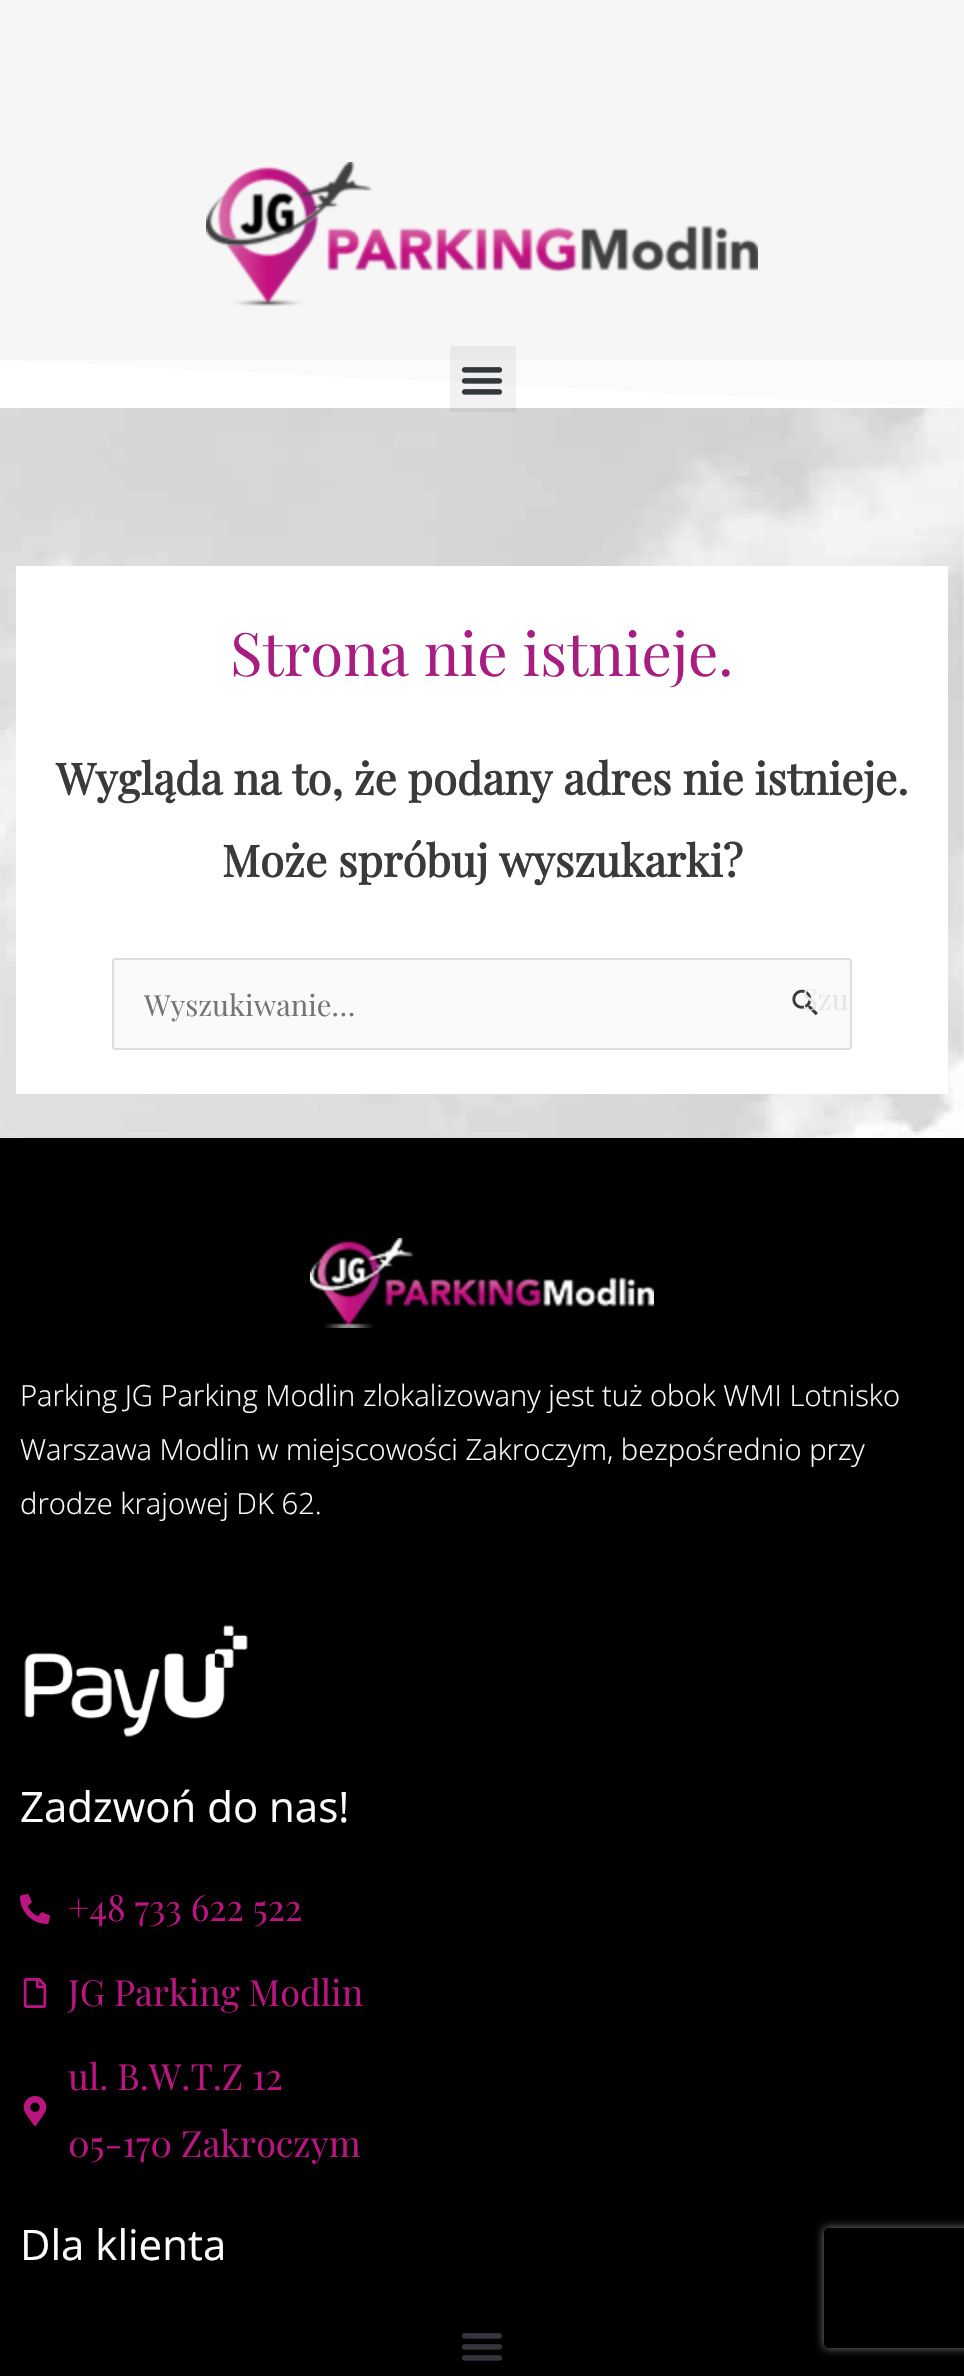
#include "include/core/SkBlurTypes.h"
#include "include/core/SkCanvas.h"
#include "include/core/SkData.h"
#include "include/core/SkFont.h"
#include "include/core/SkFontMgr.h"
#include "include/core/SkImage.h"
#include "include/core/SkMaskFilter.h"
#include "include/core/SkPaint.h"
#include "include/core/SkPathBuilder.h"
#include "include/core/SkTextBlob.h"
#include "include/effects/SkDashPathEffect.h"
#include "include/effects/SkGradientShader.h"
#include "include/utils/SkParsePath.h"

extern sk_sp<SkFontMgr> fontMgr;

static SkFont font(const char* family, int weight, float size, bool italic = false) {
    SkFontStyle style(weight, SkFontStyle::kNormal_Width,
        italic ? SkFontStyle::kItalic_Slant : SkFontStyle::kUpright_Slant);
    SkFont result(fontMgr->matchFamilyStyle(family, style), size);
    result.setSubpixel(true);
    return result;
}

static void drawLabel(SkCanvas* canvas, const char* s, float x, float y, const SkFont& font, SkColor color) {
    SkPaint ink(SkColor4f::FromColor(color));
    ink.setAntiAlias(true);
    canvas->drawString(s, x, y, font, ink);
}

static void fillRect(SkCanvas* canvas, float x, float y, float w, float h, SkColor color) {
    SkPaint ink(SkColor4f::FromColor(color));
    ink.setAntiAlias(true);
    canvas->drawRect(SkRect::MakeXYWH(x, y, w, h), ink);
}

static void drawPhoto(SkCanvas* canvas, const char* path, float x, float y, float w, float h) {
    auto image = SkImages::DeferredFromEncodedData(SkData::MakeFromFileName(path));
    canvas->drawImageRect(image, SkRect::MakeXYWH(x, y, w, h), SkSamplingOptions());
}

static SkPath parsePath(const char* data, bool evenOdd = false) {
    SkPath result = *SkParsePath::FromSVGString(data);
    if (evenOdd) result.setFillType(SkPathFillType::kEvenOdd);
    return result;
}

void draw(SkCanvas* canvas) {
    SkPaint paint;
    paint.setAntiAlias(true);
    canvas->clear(0xFFFFFFFF);
    drawPhoto(canvas, "assets/img1.png", 0, 406, 964, 732);
    fillRect(canvas, 0, 0, 964, 406, 0xFFF6F6F6);
    paint.setColor(0xFFFFFFFF);
    canvas->drawPath(parsePath("M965 408H-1V360Z"), paint);
    fillRect(canvas, 10, 360, 954, 48, 0x80FFFFFF);
    drawPhoto(canvas, "assets/img2.png", 206, 162, 552, 144);
    fillRect(canvas, 450, 346, 66, 66, 0x0D000000);
    drawPhoto(canvas, "assets/img3.png", 461, 367, 42, 28);
    fillRect(canvas, 16, 566, 932, 528, 0xFFFFFFFF);
    SkFont font1 = font("Playfair Display", 400, 60);
    drawLabel(canvas, "Strona nie istnieje.", 230, 676, font1, 0xFFA71D81);
    SkFont font2 = font("Playfair Display", 700, 43.75f);
    drawLabel(canvas, "Wygląda na to, że podany adres nie istnieje.", 56, 795, font2, 0xFF3A3A3A);
    drawLabel(canvas, "Może spróbuj wyszukarki?", 222, 877, font2, 0xFF3A3A3A);
    paint.setColor(0xFFFAFAFA);
    canvas->drawRoundRect(SkRect::MakeXYWH(113, 959, 738, 90), 3, 3, paint);
    paint.setStroke(true);
    paint.setStrokeWidth(2);
    paint.setColor(0xFFDDDDDD);
    canvas->drawRoundRect(SkRect::MakeXYWH(113, 959, 738, 90), 3, 3, paint);
    drawPhoto(canvas, "assets/img4.png", 792, 989, 26, 27);
    SkFont font3 = font("Playfair Display", 400, 29.2f);
    drawLabel(canvas, "Wyszukiwanie…", 144, 1016, font3, 0xFF757575);
    drawLabel(canvas, "Szu", 802, 1010, font3, 0xFFE6E6E6);
    fillRect(canvas, 0, 1138, 964, 1238, 0xFF000000);
    drawPhoto(canvas, "assets/img5.png", 310, 1238, 344, 90);
    SkFont font4 = font("Open Sans", 300, 29.2f);
    drawLabel(canvas, "Parking JG Parking Modlin zlokalizowany jest tuż obok WMI Lotnisko", 20, 1406, font4, 0xFFFDFDFD);
    drawLabel(canvas, "Warszawa Modlin w miejscowości Zakroczym, bezpośrednio przy", 20, 1460, font4, 0xFFFDFDFD);
    drawLabel(canvas, "drodze krajowej DK 62.", 20, 1514, font4, 0xFFFDFDFD);
    drawPhoto(canvas, "assets/img6.png", 24, 1625, 224, 112);
    SkFont font5 = font("Open Sans", 400, 42);
    drawLabel(canvas, "Zadzwoń do nas!", 20, 1822, font5, 0xFFFDFDFD);
    drawPhoto(canvas, "assets/img7.png", 20, 1894, 30, 30);
    SkFont font6 = font("Playfair Display", 400, 36);
    drawLabel(canvas, "+48 733 622 522", 68, 1921, font6, 0xFFBA1581);
    drawPhoto(canvas, "assets/img8.png", 23, 1978, 24, 30);
    drawLabel(canvas, "JG Parking Modlin", 68, 2006, font6, 0xFFBA1581);
    drawPhoto(canvas, "assets/img9.png", 23, 2096, 24, 30);
    drawLabel(canvas, "ul. B.W.T.Z 12", 68, 2090, font6, 0xFFBA1581);
    drawLabel(canvas, "05-170 Zakroczym", 68, 2157, font6, 0xFFBA1581);
    drawLabel(canvas, "Dla klienta", 20, 2260, font5, 0xFFFDFDFD);
    drawPhoto(canvas, "assets/img10.png", 461, 2333, 41, 28);
    canvas->save();
    canvas->clipPath(parsePath("M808 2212H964V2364H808ZM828 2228H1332C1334 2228 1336 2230 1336 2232V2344C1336 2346 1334 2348 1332 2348H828C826 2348 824 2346 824 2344V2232C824 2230 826 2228 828 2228Z", true), true);
    paint.setStroke(false);
    paint.setColor(0xFF808080);
    paint.setMaskFilter(SkMaskFilter::MakeBlur(kNormal_SkBlurStyle, 5));
    canvas->drawRoundRect(SkRect::MakeXYWH(824, 2228, 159, 120), 4, 4, paint);
    paint.setMaskFilter(nullptr);
    canvas->restore();
}
